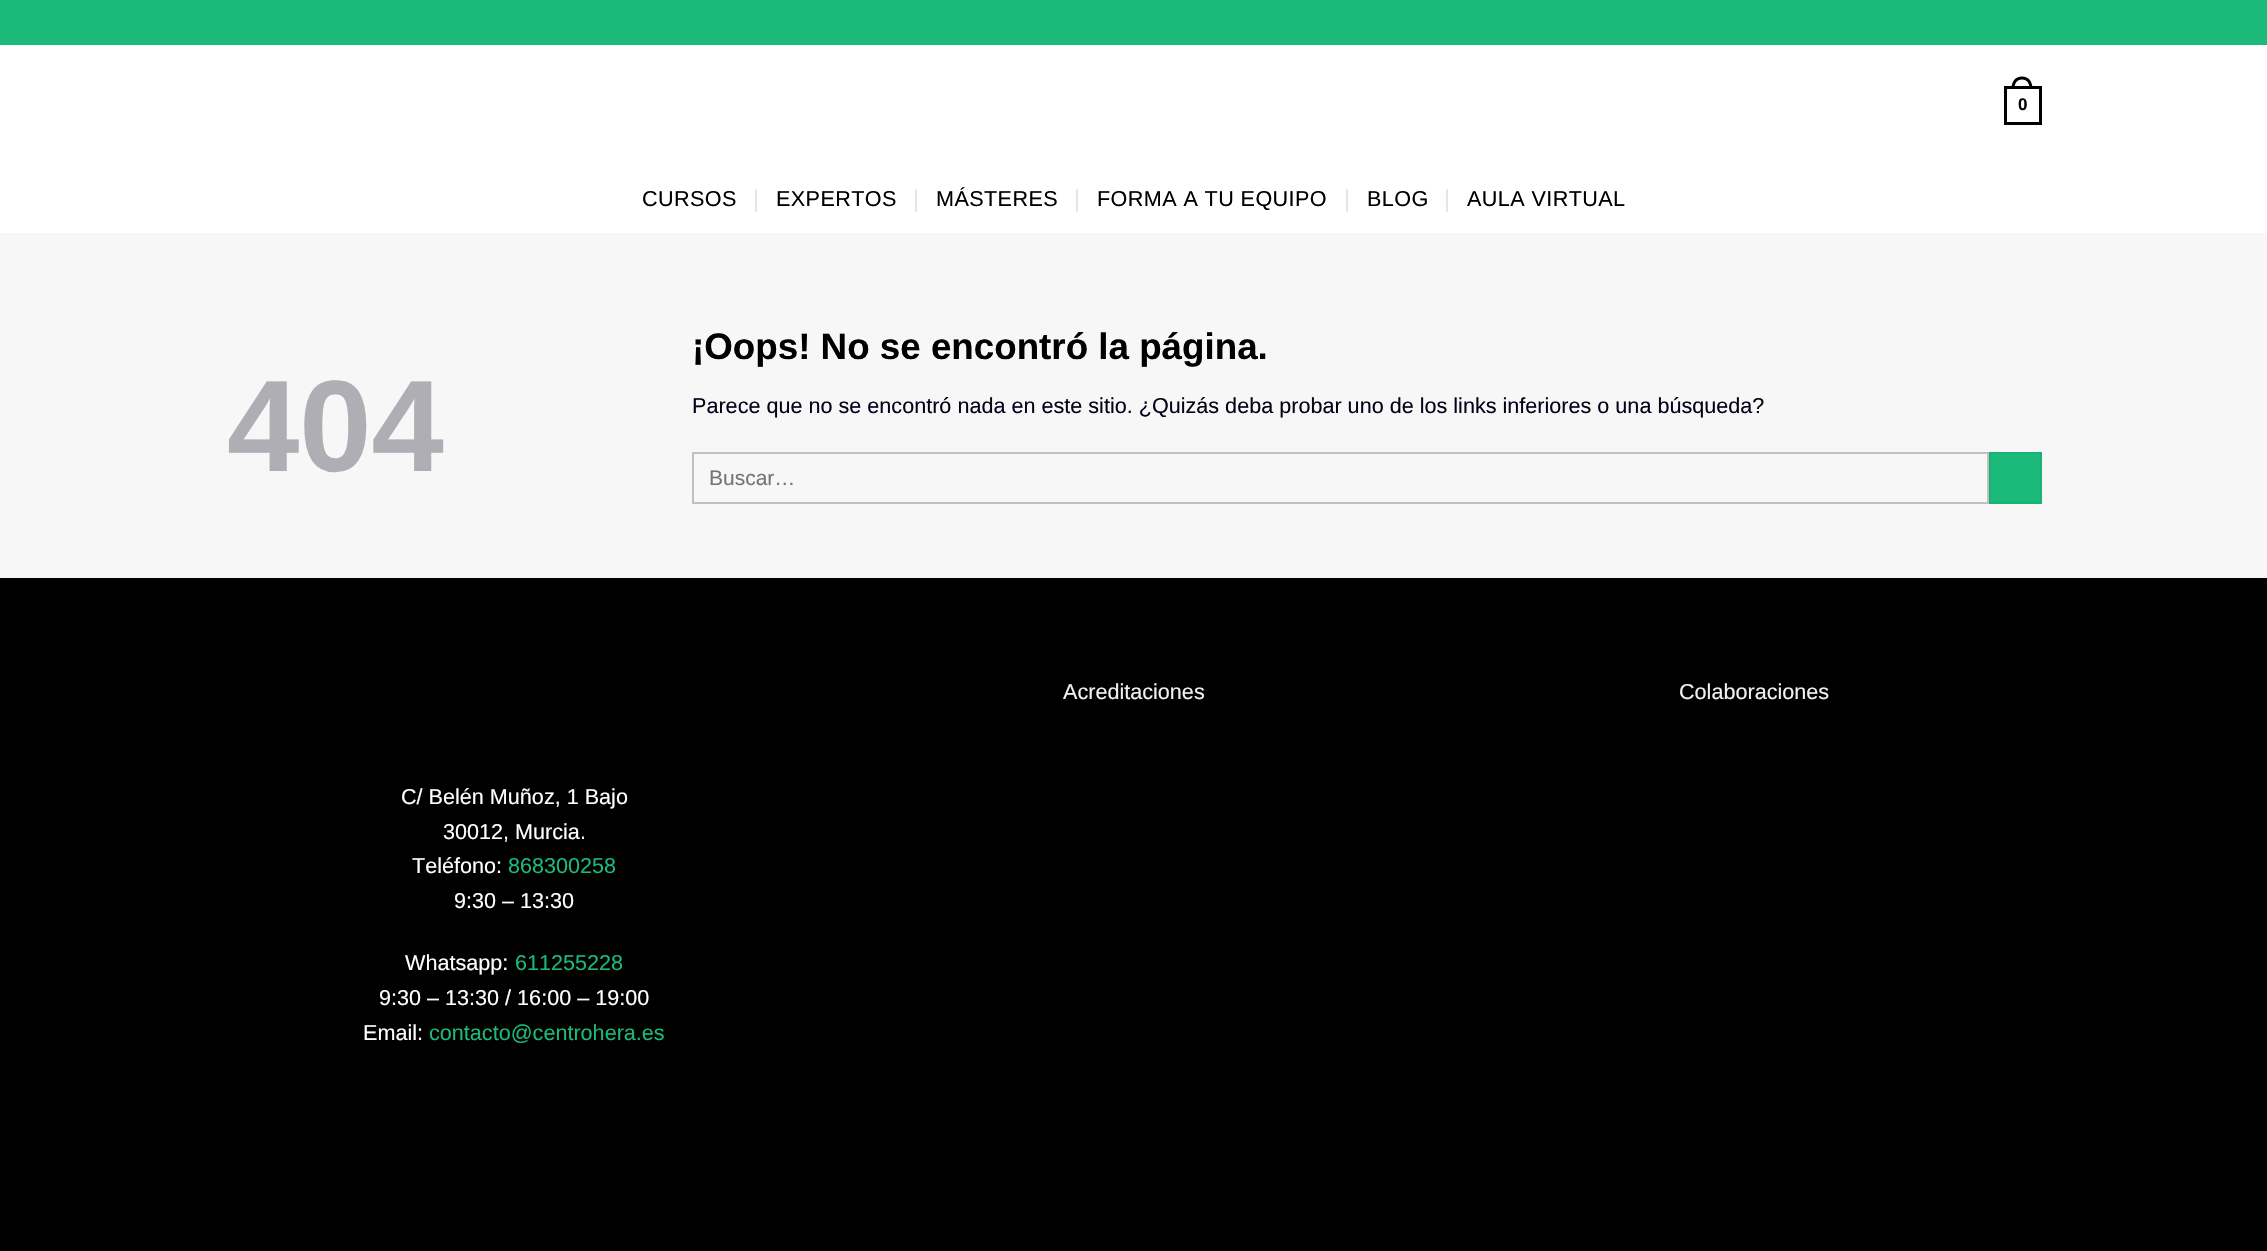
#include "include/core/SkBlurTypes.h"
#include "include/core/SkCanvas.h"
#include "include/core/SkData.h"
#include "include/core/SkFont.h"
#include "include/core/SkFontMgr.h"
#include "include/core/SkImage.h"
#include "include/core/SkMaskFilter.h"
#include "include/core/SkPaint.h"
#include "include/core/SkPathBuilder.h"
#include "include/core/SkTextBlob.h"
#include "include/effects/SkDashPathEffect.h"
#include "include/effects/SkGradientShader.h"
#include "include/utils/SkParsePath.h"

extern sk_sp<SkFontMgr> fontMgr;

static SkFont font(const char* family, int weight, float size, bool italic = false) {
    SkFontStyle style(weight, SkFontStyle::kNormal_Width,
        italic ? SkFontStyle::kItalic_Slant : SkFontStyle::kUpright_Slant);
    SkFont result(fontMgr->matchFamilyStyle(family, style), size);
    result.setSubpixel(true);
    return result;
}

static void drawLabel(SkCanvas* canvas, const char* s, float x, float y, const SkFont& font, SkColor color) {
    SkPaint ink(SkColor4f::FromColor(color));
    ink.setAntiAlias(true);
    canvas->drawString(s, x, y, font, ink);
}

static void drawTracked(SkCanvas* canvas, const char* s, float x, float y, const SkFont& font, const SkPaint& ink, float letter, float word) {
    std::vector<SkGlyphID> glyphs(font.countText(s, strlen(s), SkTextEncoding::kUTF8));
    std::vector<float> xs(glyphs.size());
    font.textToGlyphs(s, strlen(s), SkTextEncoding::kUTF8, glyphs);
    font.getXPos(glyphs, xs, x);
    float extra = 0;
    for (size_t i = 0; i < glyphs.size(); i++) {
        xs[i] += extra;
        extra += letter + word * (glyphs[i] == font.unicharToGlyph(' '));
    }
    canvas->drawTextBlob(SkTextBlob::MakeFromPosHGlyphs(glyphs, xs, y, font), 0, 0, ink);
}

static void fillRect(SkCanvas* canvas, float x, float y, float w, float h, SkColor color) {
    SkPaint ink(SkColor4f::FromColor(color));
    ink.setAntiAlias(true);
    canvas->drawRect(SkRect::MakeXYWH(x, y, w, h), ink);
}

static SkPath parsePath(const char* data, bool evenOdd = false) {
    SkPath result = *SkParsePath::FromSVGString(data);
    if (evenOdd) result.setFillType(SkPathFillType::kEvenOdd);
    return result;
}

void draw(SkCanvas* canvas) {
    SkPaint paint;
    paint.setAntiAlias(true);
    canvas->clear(0xFFF7F7F7);
    fillRect(canvas, 0, 0, 2267, 45, 0xFF1BBA7A);
    fillRect(canvas, 0, 45, 2267, 188, 0xFFFFFFFF);
    paint.setStroke(true);
    paint.setStrokeWidth(3);
    paint.setColor(0xFF000000);
    canvas->drawRect(SkRect::MakeXYWH(2005.5f, 87.5f, 35, 36), paint);
    paint.setStroke(false);
    canvas->drawPath(parsePath("M2022 76.5C2029 76.5 2032.5 82 2032.5 88.5H2011.5C2011.5 82 2015 76.5 2022 76.5ZM2022 79.5C2027.5 79.5 2029.5 84 2029.5 88.5H2014.5C2014.5 84 2016.5 79.5 2022 79.5Z", true), paint);
    SkFont font1 = font("Liberation Sans", 700, 17);
    drawLabel(canvas, "0", 2018, 110, font1, 0xFF000000);
    SkFont font2 = font("Liberation Sans", 400, 21.6f);
    drawTracked(canvas, "CURSOS", 642, 206, font2, paint, 0.4f, 0);
    fillRect(canvas, 755, 189, 2, 23, 0xFFE6E6E6);
    drawTracked(canvas, "EXPERTOS", 776, 206, font2, paint, 0.4f, 0);
    fillRect(canvas, 915, 189, 2, 23, 0xFFE6E6E6);
    drawTracked(canvas, "MÁSTERES", 936, 206, font2, paint, 0.4f, 0);
    fillRect(canvas, 1076, 189, 2, 23, 0xFFE6E6E6);
    drawTracked(canvas, "FORMA A TU EQUIPO", 1097, 206, font2, paint, 0.4f, 0);
    fillRect(canvas, 1346, 189, 2, 23, 0xFFE6E6E6);
    drawTracked(canvas, "BLOG", 1367, 206, font2, paint, 0.4f, 0);
    fillRect(canvas, 1446, 189, 2, 23, 0xFFE6E6E6);
    drawTracked(canvas, "AULA VIRTUAL", 1467, 206, font2, paint, 0.4f, 0);
    SkFont font3 = font("Liberation Sans", 700, 130);
    drawLabel(canvas, "404", 227, 471, font3, 0xFFAEAEB4);
    SkFont font4 = font("Liberation Sans", 700, 36.75f);
    drawLabel(canvas, "¡Oops! No se encontró la página.", 692, 359, font4, 0xFF000000);
    drawLabel(canvas, "Parece que no se encontró nada en este sitio. ¿Quizás deba probar uno de los links inferiores o una búsqueda?", 692, 413, font2, 0xFF020219);
    paint.setStroke(true);
    paint.setStrokeWidth(2);
    paint.setColor(0xFFC0C0C0);
    canvas->drawRect(SkRect::MakeXYWH(693, 453, 1295, 50), paint);
    SkFont font5 = font("Liberation Sans", 400, 21);
    drawLabel(canvas, "Buscar…", 709, 485, font5, 0xFF757575);
    paint.setStroke(false);
    paint.setColor(0xFF1BBA7A);
    canvas->drawRect(SkRect::MakeXYWH(1990, 453, 51, 50), paint);
    paint.setStroke(true);
    paint.setColor(0xFF1AB174);
    canvas->drawRect(SkRect::MakeXYWH(1990, 453, 51, 50), paint);
    fillRect(canvas, 0, 578, 2267, 673, 0xFF000000);
    drawLabel(canvas, "Acreditaciones", 1063, 699, font2, 0xFFF1F1F1);
    drawLabel(canvas, "Colaboraciones", 1679, 699, font2, 0xFFF1F1F1);
    drawLabel(canvas, "C/ Belén Muñoz, 1 Bajo", 401, 804, font2, 0xFFFFFFFF);
    drawLabel(canvas, "30012, Murcia.", 443, 839, font2, 0xFFFFFFFF);
    drawLabel(canvas, "Teléfono:", 412, 873, font2, 0xFFFFFFFF);
    drawLabel(canvas, "868300258", 508, 873, font2, 0xFF1BBA7A);
    drawLabel(canvas, "9:30 – 13:30", 454, 908, font2, 0xFFFFFFFF);
    drawLabel(canvas, "Whatsapp:", 405, 970, font2, 0xFFFFFFFF);
    drawLabel(canvas, "611255228", 515, 970, font2, 0xFF1BBA7A);
    drawLabel(canvas, "9:30 – 13:30 / 16:00 – 19:00", 379, 1005, font2, 0xFFFFFFFF);
    drawLabel(canvas, "Email:", 363, 1040, font2, 0xFFFFFFFF);
    drawLabel(canvas, "contacto@centrohera.es", 429, 1040, font2, 0xFF1BBA7A);
}
